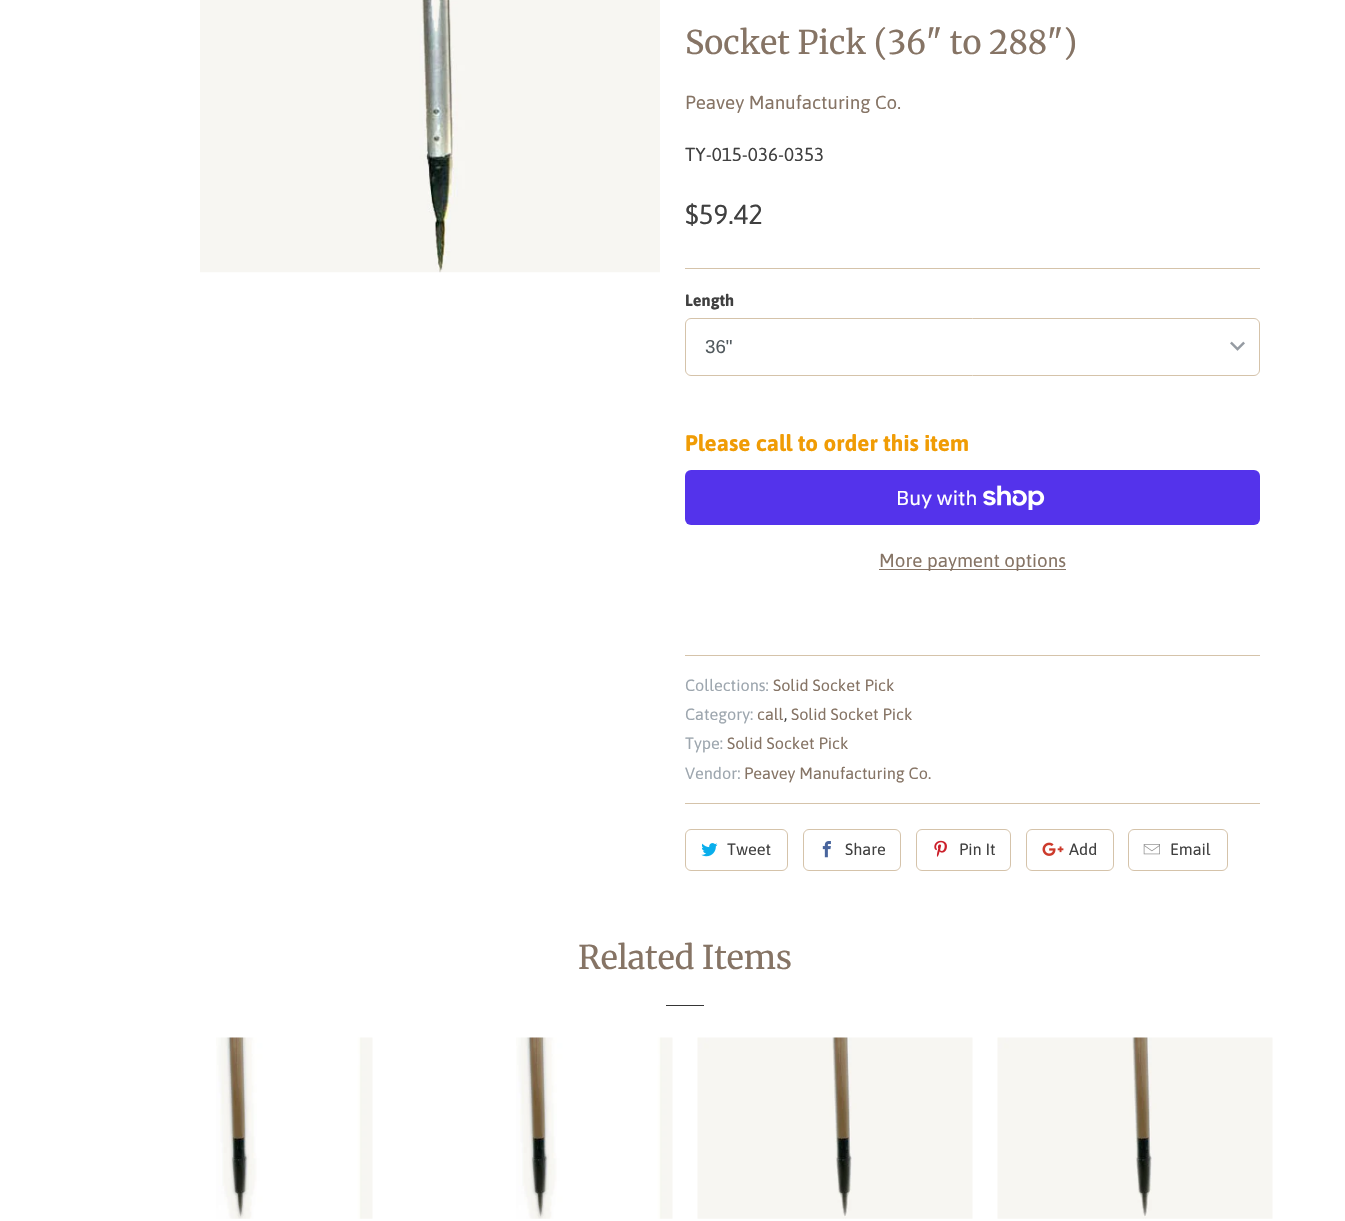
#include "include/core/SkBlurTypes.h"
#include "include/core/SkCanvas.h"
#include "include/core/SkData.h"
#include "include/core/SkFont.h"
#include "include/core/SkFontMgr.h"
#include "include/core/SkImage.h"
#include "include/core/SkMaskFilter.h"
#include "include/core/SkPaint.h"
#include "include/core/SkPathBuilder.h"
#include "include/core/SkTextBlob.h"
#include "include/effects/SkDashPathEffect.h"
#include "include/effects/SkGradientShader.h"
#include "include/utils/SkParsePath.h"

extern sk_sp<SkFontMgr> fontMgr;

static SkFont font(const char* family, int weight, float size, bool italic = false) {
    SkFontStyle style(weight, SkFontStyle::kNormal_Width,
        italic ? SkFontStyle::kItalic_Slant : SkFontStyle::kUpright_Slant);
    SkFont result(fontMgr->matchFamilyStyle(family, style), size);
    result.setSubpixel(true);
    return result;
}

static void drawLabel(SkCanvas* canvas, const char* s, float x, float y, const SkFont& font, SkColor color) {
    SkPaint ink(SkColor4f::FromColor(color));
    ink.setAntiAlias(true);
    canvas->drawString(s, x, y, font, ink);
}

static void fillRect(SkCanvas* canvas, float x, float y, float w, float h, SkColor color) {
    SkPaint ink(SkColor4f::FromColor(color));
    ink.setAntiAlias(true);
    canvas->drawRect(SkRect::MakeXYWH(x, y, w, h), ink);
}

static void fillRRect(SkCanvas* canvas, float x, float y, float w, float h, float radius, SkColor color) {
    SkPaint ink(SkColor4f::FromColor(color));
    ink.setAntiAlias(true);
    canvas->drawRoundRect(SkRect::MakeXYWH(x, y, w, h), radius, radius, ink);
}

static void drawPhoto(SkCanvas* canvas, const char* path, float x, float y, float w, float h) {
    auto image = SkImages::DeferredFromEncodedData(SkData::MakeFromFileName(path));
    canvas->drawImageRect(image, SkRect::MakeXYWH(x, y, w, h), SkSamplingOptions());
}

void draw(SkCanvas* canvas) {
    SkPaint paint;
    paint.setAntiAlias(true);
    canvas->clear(0xFFFFFFFF);
    drawPhoto(canvas, "assets/img1.png", 200, 0, 460, 273);
    SkFont font1 = font("Merriweather", 400, 32.5f);
    drawLabel(canvas, "Socket Pick (36\" to 288\")", 685, 54, font1, 0xFF867465);
    SkFont font2 = font("Asap", 400, 18.75f);
    drawLabel(canvas, "Peavey Manufacturing Co.", 685, 109, font2, 0xFF867465);
    drawLabel(canvas, "TY-015-036-0353", 685, 161, font2, 0xFF404040);
    SkFont font3 = font("Asap", 400, 27.5f);
    drawLabel(canvas, "$59.42", 685, 224, font3, 0xFF404040);
    fillRect(canvas, 685, 268, 575, 1, 0xFFD5C3AA);
    SkFont font4 = font("Asap", 700, 16.25f);
    drawLabel(canvas, "Length", 685, 306, font4, 0xFF404040);
    drawPhoto(canvas, "assets/img2.png", 1230, 341, 15, 10);
    paint.setStroke(true);
    paint.setStrokeWidth(1);
    paint.setColor(0xFFD5C3AA);
    canvas->drawRoundRect(SkRect::MakeXYWH(685.5f, 318.5f, 574, 57), 5.5f, 5.5f, paint);
    SkFont font5 = font("Liberation Sans", 400, 18.75f);
    drawLabel(canvas, "36\"", 705, 353, font5, 0xFF51595D);
    SkFont font6 = font("Asap", 700, 22.5f);
    drawLabel(canvas, "Please call to order this item", 685, 451, font6, 0xFFF09C05);
    fillRRect(canvas, 685, 470, 575, 55, 6, 0xFF5433EB);
    SkFont font7 = font("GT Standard", 400, 20);
    drawLabel(canvas, "Buy with", 896, 505, font7, 0xFFFFFFFF);
    drawPhoto(canvas, "assets/img3.png", 983, 485, 62, 25);
    fillRect(canvas, 879, 569, 187, 1, 0xFF867465);
    drawLabel(canvas, "More payment options", 879, 567, font2, 0xFF867465);
    fillRect(canvas, 685, 655, 575, 1, 0xFFD5C3AA);
    SkFont font8 = font("Asap", 400, 16.25f);
    drawLabel(canvas, "Collections:", 685, 691, font8, 0xFF9DA6AE);
    drawLabel(canvas, "Solid Socket Pick", 773, 691, font8, 0xFF867465);
    drawLabel(canvas, "Category:", 685, 720, font8, 0xFF9DA6AE);
    drawLabel(canvas, "call", 757, 720, font8, 0xFF867465);
    drawLabel(canvas, ",", 784, 720, font8, 0xFF404040);
    drawLabel(canvas, "Solid Socket Pick", 791, 720, font8, 0xFF867465);
    drawLabel(canvas, "Type:", 685, 749, font8, 0xFF9DA6AE);
    drawLabel(canvas, "Solid Socket Pick", 727, 749, font8, 0xFF867465);
    drawLabel(canvas, "Vendor:", 685, 779, font8, 0xFF9DA6AE);
    drawLabel(canvas, "Peavey Manufacturing Co.", 744, 779, font8, 0xFF867465);
    fillRect(canvas, 685, 803, 575, 1, 0xFFD5C3AA);
    canvas->drawRoundRect(SkRect::MakeXYWH(685.5f, 829.5f, 102, 41), 5.5f, 5.5f, paint);
    drawPhoto(canvas, "assets/img4.png", 701, 843, 17, 14);
    drawLabel(canvas, "Tweet", 727, 855, font8, 0xFF404040);
    canvas->drawRoundRect(SkRect::MakeXYWH(803.5f, 829.5f, 97, 41), 5.5f, 5.5f, paint);
    drawPhoto(canvas, "assets/img5.png", 822, 841, 9, 17);
    drawLabel(canvas, "Share", 845, 855, font8, 0xFF404040);
    canvas->drawRoundRect(SkRect::MakeXYWH(916.5f, 829.5f, 94, 41), 5.5f, 5.5f, paint);
    drawPhoto(canvas, "assets/img6.png", 934, 840, 13, 17);
    drawLabel(canvas, "Pin It", 959, 855, font8, 0xFF404040);
    canvas->drawRoundRect(SkRect::MakeXYWH(1026.5f, 829.5f, 87, 41), 5.5f, 5.5f, paint);
    drawPhoto(canvas, "assets/img7.png", 1042, 842, 22, 14);
    drawLabel(canvas, "Add", 1069, 855, font8, 0xFF404040);
    canvas->drawRoundRect(SkRect::MakeXYWH(1128.5f, 829.5f, 99, 41), 5.5f, 5.5f, paint);
    drawPhoto(canvas, "assets/img8.png", 1143, 844, 17, 11);
    drawLabel(canvas, "Email", 1170, 855, font8, 0xFF404040);
    drawLabel(canvas, "Related Items", 578, 969, font1, 0xFF867465);
    fillRect(canvas, 666, 1005, 38, 1, 0xFF363636);
    drawPhoto(canvas, "assets/img9.png", 216, 1037, 157, 182);
    drawPhoto(canvas, "assets/img10.png", 516, 1037, 157, 182);
    drawPhoto(canvas, "assets/img11.png", 697, 1037, 276, 182);
    drawPhoto(canvas, "assets/img12.png", 997, 1037, 276, 182);
}
